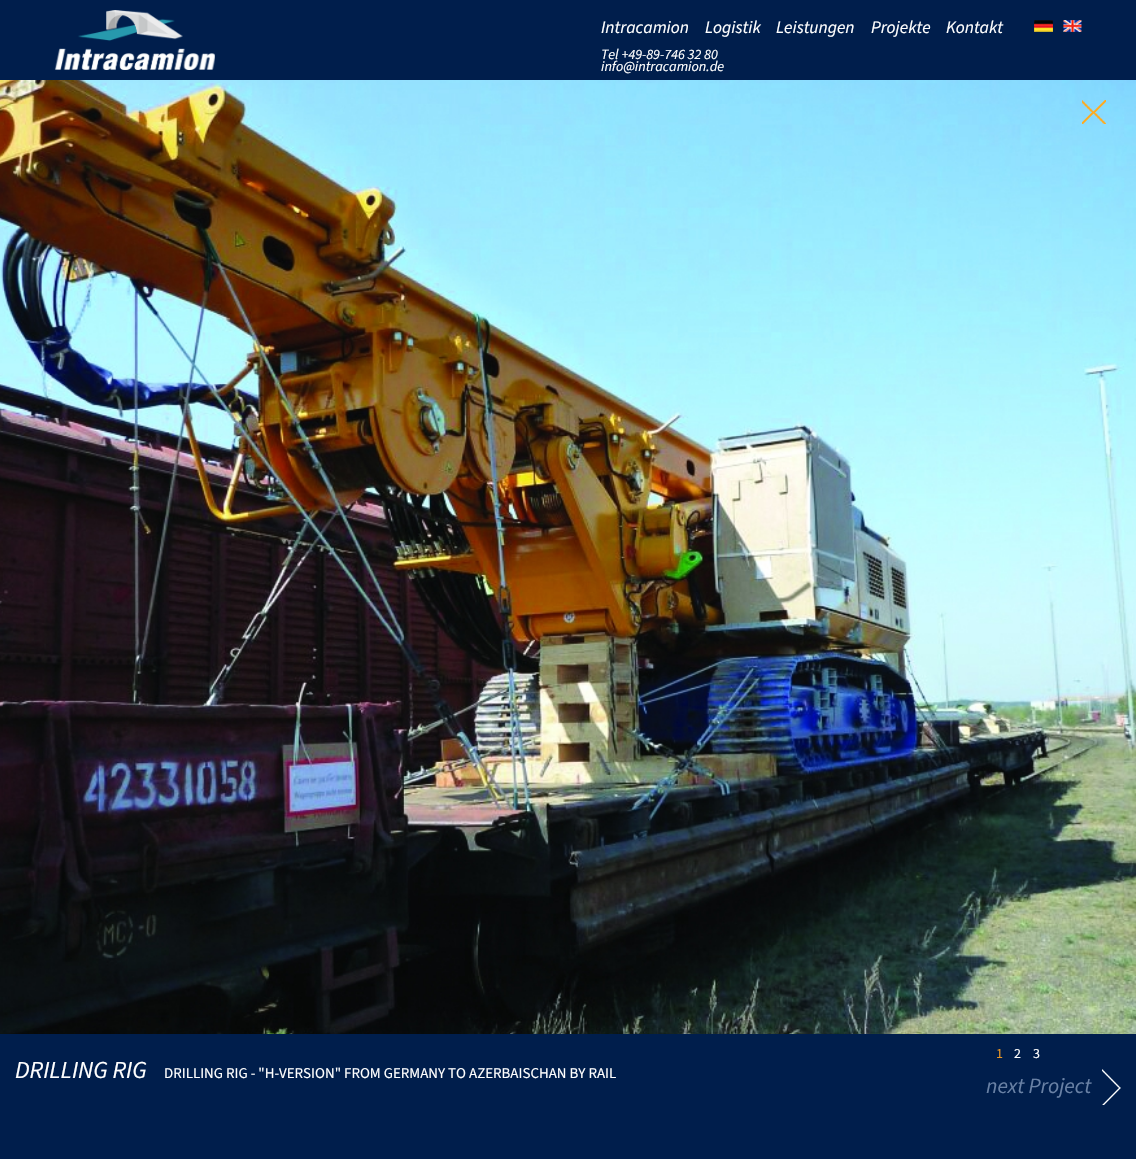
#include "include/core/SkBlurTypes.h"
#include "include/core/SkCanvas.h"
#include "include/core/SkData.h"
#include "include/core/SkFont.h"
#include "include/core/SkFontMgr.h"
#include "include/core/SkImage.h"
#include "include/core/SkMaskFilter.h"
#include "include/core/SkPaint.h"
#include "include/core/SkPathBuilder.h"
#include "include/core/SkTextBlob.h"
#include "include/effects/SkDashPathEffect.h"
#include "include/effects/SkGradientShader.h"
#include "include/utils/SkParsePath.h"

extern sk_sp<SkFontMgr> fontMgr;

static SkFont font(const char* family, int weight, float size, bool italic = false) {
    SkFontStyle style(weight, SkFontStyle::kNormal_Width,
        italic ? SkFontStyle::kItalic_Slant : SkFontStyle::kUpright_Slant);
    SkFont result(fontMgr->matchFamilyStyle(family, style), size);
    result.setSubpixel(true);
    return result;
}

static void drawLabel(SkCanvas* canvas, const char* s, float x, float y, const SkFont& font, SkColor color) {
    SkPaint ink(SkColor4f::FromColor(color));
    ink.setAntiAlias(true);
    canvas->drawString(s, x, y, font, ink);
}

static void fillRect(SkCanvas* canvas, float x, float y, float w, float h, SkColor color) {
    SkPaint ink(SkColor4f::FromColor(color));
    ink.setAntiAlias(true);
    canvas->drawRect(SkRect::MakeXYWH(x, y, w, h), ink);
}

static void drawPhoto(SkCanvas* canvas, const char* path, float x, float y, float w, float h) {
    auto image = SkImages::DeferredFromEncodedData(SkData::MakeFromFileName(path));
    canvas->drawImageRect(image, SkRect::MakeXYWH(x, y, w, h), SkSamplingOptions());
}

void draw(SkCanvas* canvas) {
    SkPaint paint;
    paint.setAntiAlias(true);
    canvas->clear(0xFFFFFFFF);
    fillRect(canvas, 0, 0, 1136, 80, 0xFF001E4C);
    drawPhoto(canvas, "assets/img1.png", 54, 10, 161, 60);
    SkFont font1 = font("Source Sans 3", 400, 17.5f, true);
    drawLabel(canvas, "Intracamion", 601, 33, font1, 0xFFFFFFFF);
    drawLabel(canvas, "Logistik", 705, 33, font1, 0xFFFFFFFF);
    drawLabel(canvas, "Leistungen", 776, 33, font1, 0xFFFFFFFF);
    drawLabel(canvas, "Projekte", 871, 33, font1, 0xFFFFFFFF);
    drawLabel(canvas, "Kontakt", 946, 33, font1, 0xFFFFFFFF);
    SkFont font2 = font("Source Sans 3", 400, 14.25f, true);
    drawLabel(canvas, "Tel +49-89-746 32 80", 601, 59, font2, 0xFFFFFFFF);
    drawLabel(canvas, "info@intracamion.de", 601, 71, font2, 0xFFFFFFFF);
    drawPhoto(canvas, "assets/img2.png", 1034, 20, 19, 12);
    drawPhoto(canvas, "assets/img3.png", 1063, 20, 19, 12);
    drawPhoto(canvas, "assets/img4.png", 0, 80, 1136, 954);
    drawPhoto(canvas, "assets/img5.png", 1082, 100, 24, 24);
    fillRect(canvas, 0, 1034, 1136, 125, 0xFF001E4C);
    SkFont font3 = font("Source Sans 3", 400, 24.5f, true);
    drawLabel(canvas, "DRILLING RIG", 15, 1078, font3, 0xFFFFFFFF);
    SkFont font4 = font("Source Sans 3", 400, 14.95f);
    drawLabel(canvas, "DRILLING RIG - \"H-VERSION\" FROM GERMANY TO AZERBAISCHAN BY RAIL", 164, 1078, font4, 0xFFFFFFFF);
    SkFont font5 = font("Source Sans 3", 400, 14);
    drawLabel(canvas, "1", 996, 1058, font5, 0xFFE79525);
    drawLabel(canvas, "2", 1014, 1058, font5, 0xFFFFFFFF);
    drawLabel(canvas, "3", 1033, 1058, font5, 0xFFFFFFFF);
    drawPhoto(canvas, "assets/img6.png", 1102, 1069, 19, 36);
    SkFont font6 = font("Source Sans 3", 400, 21.75f, true);
    drawLabel(canvas, "next Project", 986, 1093, font6, 0xFF6981A5);
}
